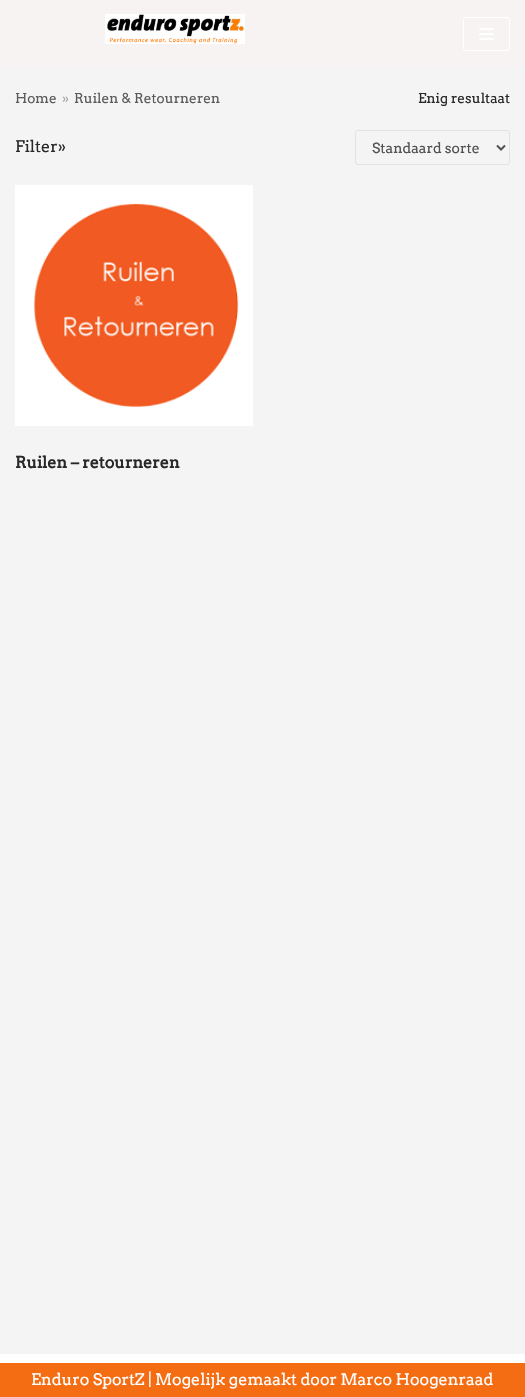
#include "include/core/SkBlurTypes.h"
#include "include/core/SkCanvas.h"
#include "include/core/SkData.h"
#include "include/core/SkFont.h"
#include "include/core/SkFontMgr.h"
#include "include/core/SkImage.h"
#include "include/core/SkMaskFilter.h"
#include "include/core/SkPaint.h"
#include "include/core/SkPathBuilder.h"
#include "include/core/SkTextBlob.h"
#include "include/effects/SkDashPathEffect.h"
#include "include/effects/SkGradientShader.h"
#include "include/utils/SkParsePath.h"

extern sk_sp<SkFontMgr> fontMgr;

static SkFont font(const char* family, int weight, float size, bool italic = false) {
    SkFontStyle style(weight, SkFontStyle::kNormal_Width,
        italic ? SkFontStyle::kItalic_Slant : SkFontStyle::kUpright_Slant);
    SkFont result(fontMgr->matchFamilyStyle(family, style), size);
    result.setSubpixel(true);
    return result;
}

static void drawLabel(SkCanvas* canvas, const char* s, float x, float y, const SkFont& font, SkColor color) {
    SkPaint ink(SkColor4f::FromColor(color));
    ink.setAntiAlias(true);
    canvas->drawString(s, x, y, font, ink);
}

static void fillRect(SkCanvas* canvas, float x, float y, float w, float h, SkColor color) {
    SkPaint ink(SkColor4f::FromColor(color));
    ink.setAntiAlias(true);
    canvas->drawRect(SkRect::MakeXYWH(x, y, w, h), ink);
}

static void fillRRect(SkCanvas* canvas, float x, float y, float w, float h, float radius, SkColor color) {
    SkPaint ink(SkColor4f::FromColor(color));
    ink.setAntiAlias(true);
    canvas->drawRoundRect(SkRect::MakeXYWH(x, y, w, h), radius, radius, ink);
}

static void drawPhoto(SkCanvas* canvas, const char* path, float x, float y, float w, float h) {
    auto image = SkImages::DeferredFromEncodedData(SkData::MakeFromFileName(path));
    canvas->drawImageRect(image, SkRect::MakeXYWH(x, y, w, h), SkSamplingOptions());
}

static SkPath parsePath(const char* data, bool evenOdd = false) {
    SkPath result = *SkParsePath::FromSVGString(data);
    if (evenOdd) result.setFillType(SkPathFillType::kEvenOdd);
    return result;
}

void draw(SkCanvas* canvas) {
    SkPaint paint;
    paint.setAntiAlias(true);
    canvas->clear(0xFFF4F4F4);
    fillRect(canvas, 0, 0, 525, 67, 0xFFF8F3F3);
    drawPhoto(canvas, "assets/img1.png", 105, 14, 140, 30);
    paint.setStroke(true);
    paint.setStrokeWidth(1);
    paint.setColor(0xFFFFFFFF);
    canvas->drawRoundRect(SkRect::MakeXYWH(463.5f, 17.5f, 46, 33), 2.5f, 2.5f, paint);
    fillRRect(canvas, 479, 28, 15, 2, 1, 0xFFFFFFFF);
    fillRRect(canvas, 479, 33, 15, 2, 1, 0xFFFFFFFF);
    fillRRect(canvas, 479, 38, 15, 2, 1, 0xFFFFFFFF);
    SkFont font1 = font("Arvo", 400, 13.6f);
    drawLabel(canvas, "Home", 15, 103, font1, 0xFF5C5B5B);
    drawLabel(canvas, "»", 62, 103, font1, 0xFFA8A8A8);
    drawLabel(canvas, "Ruilen & Retourneren", 74, 103, font1, 0xFF5C5B5B);
    drawLabel(canvas, "Enig resultaat", 418, 103, font1, 0xFF292828);
    SkFont font2 = font("Arvo", 400, 16);
    drawLabel(canvas, "Filter»", 15, 152, font2, 0xFF292828);
    paint.setColor(0xFFE2E2E2);
    canvas->drawRoundRect(SkRect::MakeXYWH(355.5f, 130.5f, 154, 34), 2.5f, 2.5f, paint);
    paint.setStrokeWidth(2);
    paint.setColor(0xFF525151);
    canvas->drawPath(parsePath("M497 145.5L501 149.5L505 145.5"), paint);
    SkFont font3 = font("Arvo", 400, 14);
    drawLabel(canvas, "Standaard sorte", 372, 153, font3, 0xFF525151);
    drawPhoto(canvas, "assets/img2.png", 15, 185, 238, 241);
    SkFont font4 = font("Arvo", 700, 16);
    drawLabel(canvas, "Ruilen – retourneren", 15, 468, font4, 0xFF292828);
    fillRect(canvas, 0, 1354, 525, 9, 0xFFFFFFFF);
    fillRect(canvas, 0, 1363, 525, 34, 0xFFF46D13);
    drawLabel(canvas, "Enduro SportZ | Mogelijk gemaakt door Marco Hoogenraad", 31, 1385, font2, 0xFFFFFFFF);
}
